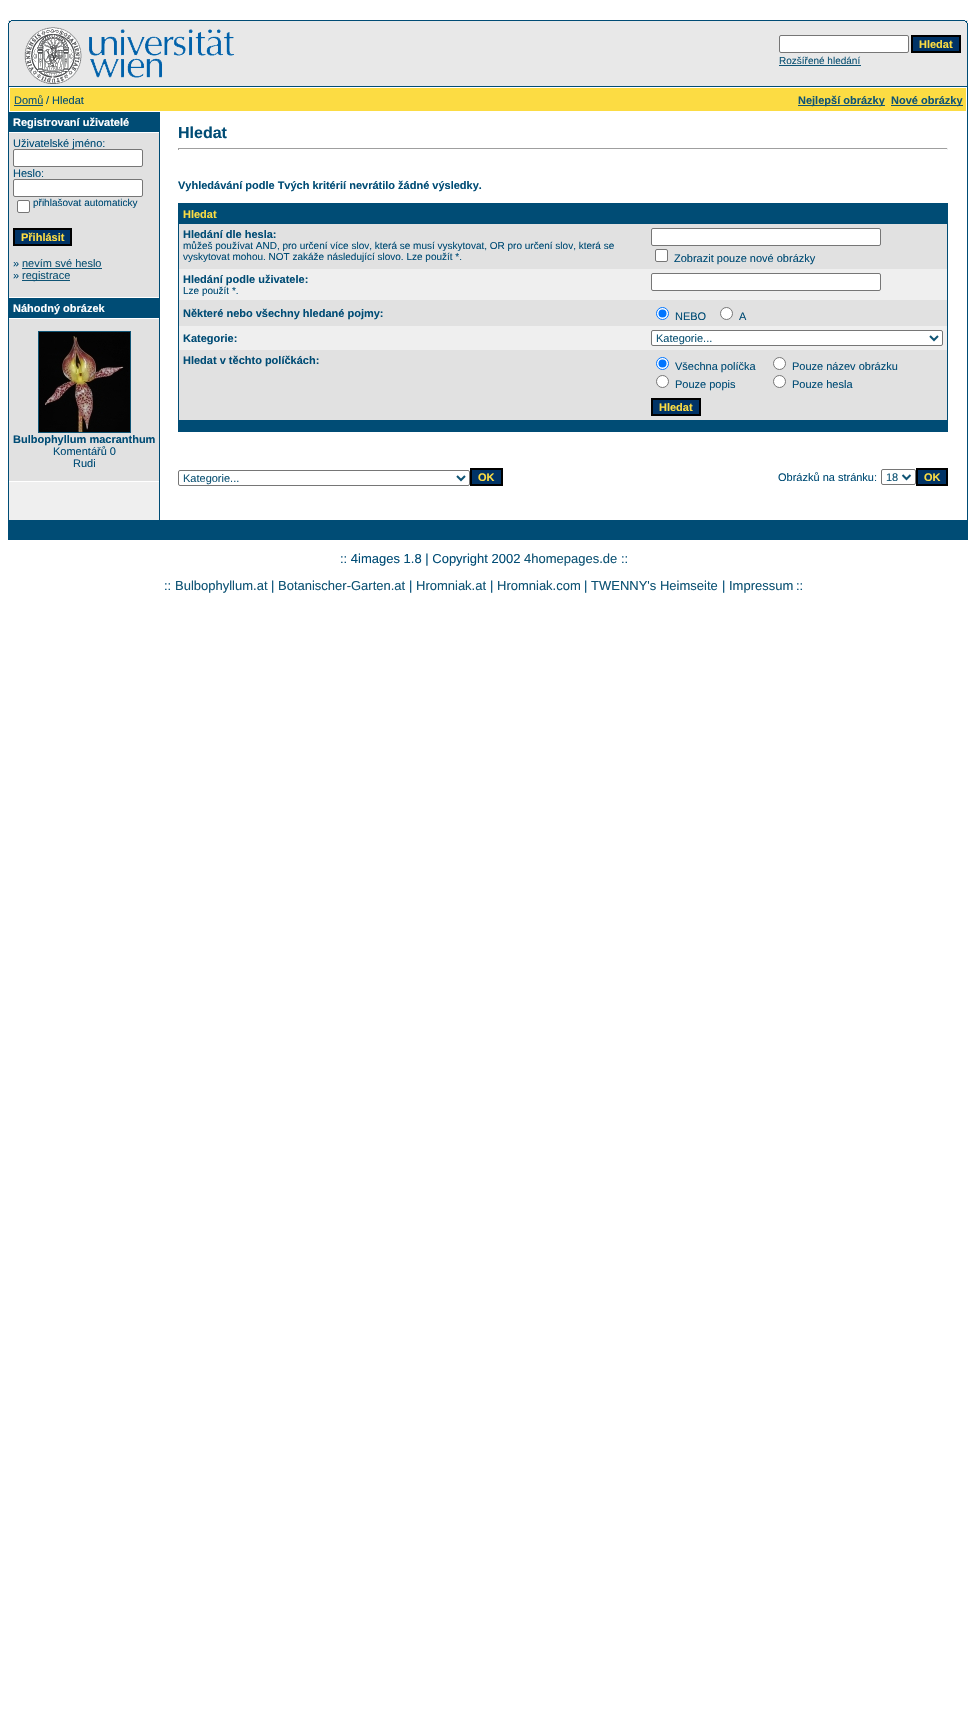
#include "include/core/SkBlurTypes.h"
#include "include/core/SkCanvas.h"
#include "include/core/SkData.h"
#include "include/core/SkFont.h"
#include "include/core/SkFontMgr.h"
#include "include/core/SkImage.h"
#include "include/core/SkMaskFilter.h"
#include "include/core/SkPaint.h"
#include "include/core/SkPathBuilder.h"
#include "include/core/SkTextBlob.h"
#include "include/effects/SkDashPathEffect.h"
#include "include/effects/SkGradientShader.h"
#include "include/utils/SkParsePath.h"

extern sk_sp<SkFontMgr> fontMgr;

static SkFont font(const char* family, int weight, float size, bool italic = false) {
    SkFontStyle style(weight, SkFontStyle::kNormal_Width,
        italic ? SkFontStyle::kItalic_Slant : SkFontStyle::kUpright_Slant);
    SkFont result(fontMgr->matchFamilyStyle(family, style), size);
    result.setSubpixel(true);
    return result;
}

static void drawLabel(SkCanvas* canvas, const char* s, float x, float y, const SkFont& font, SkColor color) {
    SkPaint ink(SkColor4f::FromColor(color));
    ink.setAntiAlias(true);
    canvas->drawString(s, x, y, font, ink);
}

static void fillRect(SkCanvas* canvas, float x, float y, float w, float h, SkColor color) {
    SkPaint ink(SkColor4f::FromColor(color));
    ink.setAntiAlias(true);
    canvas->drawRect(SkRect::MakeXYWH(x, y, w, h), ink);
}

static void drawPhoto(SkCanvas* canvas, const char* path, float x, float y, float w, float h) {
    auto image = SkImages::DeferredFromEncodedData(SkData::MakeFromFileName(path));
    canvas->drawImageRect(image, SkRect::MakeXYWH(x, y, w, h), SkSamplingOptions());
}

static SkPath parsePath(const char* data, bool evenOdd = false) {
    SkPath result = *SkParsePath::FromSVGString(data);
    if (evenOdd) result.setFillType(SkPathFillType::kEvenOdd);
    return result;
}

void draw(SkCanvas* canvas) {
    SkPaint paint;
    paint.setAntiAlias(true);
    canvas->clear(0xFFFFFFFF);
    fillRect(canvas, 8, 20, 960, 66, 0xFFE8E8E8);
    drawPhoto(canvas, "assets/img1.png", 8, 20, 6, 6);
    fillRect(canvas, 14, 20, 948, 1, 0xFF004C75);
    drawPhoto(canvas, "assets/img2.png", 962, 20, 6, 6);
    fillRect(canvas, 8, 26, 1, 60, 0xFF004C75);
    drawPhoto(canvas, "assets/img3.png", 24, 27, 211, 57);
    paint.setColor(0xFFFFFFFF);
    canvas->drawRoundRect(SkRect::MakeXYWH(779.5f, 35.5f, 129, 17), 1.5f, 1.5f, paint);
    paint.setStroke(true);
    paint.setStrokeWidth(1);
    paint.setColor(0xFF767676);
    canvas->drawRoundRect(SkRect::MakeXYWH(779.5f, 35.5f, 129, 17), 1.5f, 1.5f, paint);
    paint.setStroke(false);
    paint.setColor(0xFF003366);
    canvas->drawRect(SkRect::MakeXYWH(912, 36, 48, 16), paint);
    paint.setStroke(true);
    paint.setStrokeWidth(2);
    paint.setColor(0xFF000000);
    canvas->drawRect(SkRect::MakeXYWH(912, 36, 48, 16), paint);
    SkFont font1 = font("Liberation Sans", 700, 11);
    drawLabel(canvas, "Hledat", 919, 48, font1, 0xFFFCDC43);
    SkFont font2 = font("Liberation Sans", 400, 10);
    drawLabel(canvas, "Rozšířené hledání", 779, 64, font2, 0xFF0F5475);
    fillRect(canvas, 779, 65, 82, 1, 0xFF0F5475);
    fillRect(canvas, 967, 26, 1, 60, 0xFF004C75);
    fillRect(canvas, 8, 86, 960, 454, 0xFF004C75);
    fillRect(canvas, 9, 87, 958, 433, 0xFFFFFFFF);
    fillRect(canvas, 10, 88, 956, 23, 0xFFFCDC43);
    SkFont font3 = font("Liberation Sans", 400, 11);
    drawLabel(canvas, "Domů", 14, 104, font3, 0xFF0F5475);
    fillRect(canvas, 14, 105, 29, 1, 0xFF0F5475);
    drawLabel(canvas, "/ Hledat", 46, 104, font3, 0xFF004C75);
    fillRect(canvas, 798, 105, 87, 1, 0xFF0F5475);
    drawLabel(canvas, "Nejlepší obrázky", 798, 104, font1, 0xFF0F5475);
    fillRect(canvas, 891, 105, 72, 1, 0xFF0F5475);
    drawLabel(canvas, "Nové obrázky", 891, 104, font1, 0xFF0F5475);
    fillRect(canvas, 9, 482, 150, 38, 0xFFEFEFEF);
    fillRect(canvas, 9, 112, 150, 20, 0xFF004C75);
    drawLabel(canvas, "Registrovaní uživatelé", 13, 126, font1, 0xFFFFFFFF);
    fillRect(canvas, 9, 133, 150, 164, 0xFFE1E1E1);
    drawLabel(canvas, "Uživatelské jméno:", 13, 147, font3, 0xFF004C75);
    paint.setStroke(false);
    paint.setColor(0xFFFFFFFF);
    canvas->drawRoundRect(SkRect::MakeXYWH(13.5f, 149.5f, 129, 17), 1.5f, 1.5f, paint);
    paint.setStroke(true);
    paint.setStrokeWidth(1);
    paint.setColor(0xFF767676);
    canvas->drawRoundRect(SkRect::MakeXYWH(13.5f, 149.5f, 129, 17), 1.5f, 1.5f, paint);
    drawLabel(canvas, "Heslo:", 13, 177, font3, 0xFF004C75);
    paint.setStroke(false);
    paint.setColor(0xFFFFFFFF);
    canvas->drawRoundRect(SkRect::MakeXYWH(13.5f, 179.5f, 129, 17), 1.5f, 1.5f, paint);
    paint.setStroke(true);
    paint.setColor(0xFF767676);
    canvas->drawRoundRect(SkRect::MakeXYWH(13.5f, 179.5f, 129, 17), 1.5f, 1.5f, paint);
    paint.setStroke(false);
    paint.setColor(0xFFFFFFFF);
    canvas->drawRoundRect(SkRect::MakeXYWH(17.5f, 200.5f, 12, 12), 1.5f, 1.5f, paint);
    paint.setStroke(true);
    paint.setColor(0xFF767676);
    canvas->drawRoundRect(SkRect::MakeXYWH(17.5f, 200.5f, 12, 12), 1.5f, 1.5f, paint);
    drawLabel(canvas, "přihlašovat automaticky", 33, 206, font2, 0xFF004C75);
    paint.setStroke(false);
    paint.setColor(0xFF003366);
    canvas->drawRect(SkRect::MakeXYWH(14, 229, 57, 16), paint);
    paint.setStroke(true);
    paint.setStrokeWidth(2);
    paint.setColor(0xFF000000);
    canvas->drawRect(SkRect::MakeXYWH(14, 229, 57, 16), paint);
    drawLabel(canvas, "Přihlásit", 21, 241, font1, 0xFFFCDC43);
    drawLabel(canvas, "»", 13, 267, font3, 0xFF004C75);
    drawLabel(canvas, "nevím své heslo", 22, 267, font3, 0xFF0F5475);
    fillRect(canvas, 22, 268, 80, 1, 0xFF0F5475);
    drawLabel(canvas, "»", 13, 279, font3, 0xFF004C75);
    fillRect(canvas, 22, 280, 48, 1, 0xFF0F5475);
    drawLabel(canvas, "registrace", 22, 279, font3, 0xFF0F5475);
    fillRect(canvas, 9, 298, 150, 20, 0xFF004C75);
    drawLabel(canvas, "Náhodný obrázek", 13, 312, font1, 0xFFFFFFFF);
    fillRect(canvas, 9, 319, 150, 162, 0xFFE1E1E1);
    paint.setStrokeWidth(1);
    paint.setColor(0xFF0F5475);
    canvas->drawRect(SkRect::MakeXYWH(38.5f, 331.5f, 92, 101), paint);
    drawPhoto(canvas, "assets/img4.png", 39, 332, 91, 100);
    drawLabel(canvas, "Bulbophyllum macranthum", 13, 443, font1, 0xFF004C75);
    drawLabel(canvas, "Komentářů 0", 53, 455, font3, 0xFF004C75);
    drawLabel(canvas, "Rudi", 73, 467, font3, 0xFF004C75);
    fillRect(canvas, 159, 112, 1, 408, 0xFF004C75);
    SkFont font4 = font("Liberation Sans", 700, 16);
    drawLabel(canvas, "Hledat", 178, 138, font4, 0xFF004C75);
    fillRect(canvas, 178, 148, 770, 1, 0xFF9F9F9F);
    fillRect(canvas, 947, 148, 1, 2, 0xFFEEEEEE);
    fillRect(canvas, 178, 148, 1, 2, 0xFF9F9F9F);
    drawLabel(canvas, "Vyhledávání podle Tvých kritérií nevrátilo žádné výsledky.", 178, 189, font1, 0xFF004C75);
    fillRect(canvas, 178, 203, 770, 229, 0xFF004C75);
    drawLabel(canvas, "Hledat", 183, 218, font1, 0xFFFCDC43);
    fillRect(canvas, 179, 224, 768, 45, 0xFFE1E1E1);
    drawLabel(canvas, "Hledání dle hesla:", 183, 238, font1, 0xFF004C75);
    drawLabel(canvas, "můžeš používat AND, pro určení více slov, která se musí vyskytovat, OR pro určení slov, která se", 183, 249, font2, 0xFF004C75);
    drawLabel(canvas, "vyskytovat mohou. NOT zakáže následující slovo. Lze použít *.", 183, 260, font2, 0xFF004C75);
    paint.setStroke(false);
    paint.setColor(0xFFFFFFFF);
    canvas->drawRoundRect(SkRect::MakeXYWH(651.5f, 228.5f, 229, 17), 1.5f, 1.5f, paint);
    paint.setStroke(true);
    paint.setColor(0xFF767676);
    canvas->drawRoundRect(SkRect::MakeXYWH(651.5f, 228.5f, 229, 17), 1.5f, 1.5f, paint);
    paint.setStroke(false);
    paint.setColor(0xFFFFFFFF);
    canvas->drawRoundRect(SkRect::MakeXYWH(655.5f, 249.5f, 12, 12), 1.5f, 1.5f, paint);
    paint.setStroke(true);
    paint.setColor(0xFF767676);
    canvas->drawRoundRect(SkRect::MakeXYWH(655.5f, 249.5f, 12, 12), 1.5f, 1.5f, paint);
    drawLabel(canvas, "Zobrazit pouze nové obrázky", 674, 262, font3, 0xFF004C75);
    fillRect(canvas, 179, 269, 768, 31, 0xFFEFEFEF);
    drawLabel(canvas, "Hledání podle uživatele:", 183, 283, font1, 0xFF004C75);
    drawLabel(canvas, "Lze použít *.", 183, 294, font2, 0xFF004C75);
    paint.setStroke(false);
    paint.setColor(0xFFFFFFFF);
    canvas->drawRoundRect(SkRect::MakeXYWH(651.5f, 273.5f, 229, 17), 1.5f, 1.5f, paint);
    paint.setStroke(true);
    paint.setColor(0xFF767676);
    canvas->drawRoundRect(SkRect::MakeXYWH(651.5f, 273.5f, 229, 17), 1.5f, 1.5f, paint);
    fillRect(canvas, 179, 300, 768, 26, 0xFFE1E1E1);
    drawLabel(canvas, "Některé nebo všechny hledané pojmy:", 183, 317, font1, 0xFF004C75);
    paint.setStroke(false);
    paint.setColor(0xFFFFFFFF);
    canvas->drawCircle(662.5f, 313.5f, 6, paint);
    paint.setStroke(true);
    paint.setColor(0xFF0075FF);
    canvas->drawCircle(662.5f, 313.5f, 6, paint);
    paint.setStroke(false);
    canvas->drawCircle(662.5f, 313.5f, 4, paint);
    drawLabel(canvas, "NEBO", 675, 320, font3, 0xFF004C75);
    paint.setColor(0xFFFFFFFF);
    canvas->drawCircle(726.5f, 313.5f, 6, paint);
    paint.setStroke(true);
    paint.setColor(0xFF767676);
    canvas->drawCircle(726.5f, 313.5f, 6, paint);
    drawLabel(canvas, "A", 739, 320, font3, 0xFF004C75);
    fillRect(canvas, 179, 326, 768, 24, 0xFFEFEFEF);
    drawLabel(canvas, "Kategorie:", 183, 342, font1, 0xFF004C75);
    paint.setStroke(false);
    paint.setColor(0xFFFFFFFF);
    canvas->drawRoundRect(SkRect::MakeXYWH(651.5f, 330.5f, 291, 15), 1.5f, 1.5f, paint);
    paint.setStroke(true);
    paint.setColor(0xFF767676);
    canvas->drawRoundRect(SkRect::MakeXYWH(651.5f, 330.5f, 291, 15), 1.5f, 1.5f, paint);
    paint.setStrokeWidth(2);
    paint.setColor(0xFF0F5475);
    canvas->drawPath(parsePath("M930 336L934 340L938 336"), paint);
    drawLabel(canvas, "Kategorie...", 656, 342, font3, 0xFF0F5475);
    fillRect(canvas, 179, 350, 768, 44, 0xFFE1E1E1);
    drawLabel(canvas, "Hledat v těchto políčkách:", 183, 364, font1, 0xFF004C75);
    paint.setStroke(false);
    paint.setColor(0xFFFFFFFF);
    canvas->drawCircle(662.5f, 363.5f, 6, paint);
    paint.setStroke(true);
    paint.setStrokeWidth(1);
    paint.setColor(0xFF0075FF);
    canvas->drawCircle(662.5f, 363.5f, 6, paint);
    paint.setStroke(false);
    canvas->drawCircle(662.5f, 363.5f, 4, paint);
    drawLabel(canvas, "Všechna políčka", 675, 370, font3, 0xFF004C75);
    paint.setColor(0xFFFFFFFF);
    canvas->drawCircle(779.5f, 363.5f, 6, paint);
    paint.setStroke(true);
    paint.setColor(0xFF767676);
    canvas->drawCircle(779.5f, 363.5f, 6, paint);
    drawLabel(canvas, "Pouze název obrázku", 792, 370, font3, 0xFF004C75);
    paint.setStroke(false);
    paint.setColor(0xFFFFFFFF);
    canvas->drawCircle(662.5f, 381.5f, 6, paint);
    paint.setStroke(true);
    paint.setColor(0xFF767676);
    canvas->drawCircle(662.5f, 381.5f, 6, paint);
    drawLabel(canvas, "Pouze popis", 675, 388, font3, 0xFF004C75);
    paint.setStroke(false);
    paint.setColor(0xFFFFFFFF);
    canvas->drawCircle(779.5f, 381.5f, 6, paint);
    paint.setStroke(true);
    paint.setColor(0xFF767676);
    canvas->drawCircle(779.5f, 381.5f, 6, paint);
    drawLabel(canvas, "Pouze hesla", 792, 388, font3, 0xFF004C75);
    fillRect(canvas, 179, 394, 768, 26, 0xFFE1E1E1);
    paint.setStroke(false);
    paint.setColor(0xFF003366);
    canvas->drawRect(SkRect::MakeXYWH(652, 399, 48, 16), paint);
    paint.setStroke(true);
    paint.setStrokeWidth(2);
    paint.setColor(0xFF000000);
    canvas->drawRect(SkRect::MakeXYWH(652, 399, 48, 16), paint);
    drawLabel(canvas, "Hledat", 659, 411, font1, 0xFFFCDC43);
    paint.setStrokeWidth(1);
    paint.setColor(0xFF767676);
    canvas->drawRoundRect(SkRect::MakeXYWH(178.5f, 470.5f, 291, 15), 1.5f, 1.5f, paint);
    paint.setStrokeWidth(2);
    paint.setColor(0xFF0F5475);
    canvas->drawPath(parsePath("M457 476L461 480L465 476"), paint);
    drawLabel(canvas, "Kategorie...", 183, 482, font3, 0xFF0F5475);
    paint.setStroke(false);
    paint.setColor(0xFF003366);
    canvas->drawRect(SkRect::MakeXYWH(471, 469, 31, 16), paint);
    paint.setStroke(true);
    paint.setColor(0xFF000000);
    canvas->drawRect(SkRect::MakeXYWH(471, 469, 31, 16), paint);
    drawLabel(canvas, "OK", 478, 481, font1, 0xFFFCDC43);
    drawLabel(canvas, "Obrázků na stránku:", 778, 481, font3, 0xFF004C75);
    paint.setStrokeWidth(1);
    paint.setColor(0xFF767676);
    canvas->drawRoundRect(SkRect::MakeXYWH(881.5f, 469.5f, 34, 15), 1.5f, 1.5f, paint);
    paint.setStrokeWidth(2);
    paint.setColor(0xFF0F5475);
    canvas->drawPath(parsePath("M902.5 475L906.5 479L910.5 475"), paint);
    drawLabel(canvas, "18", 886, 481, font3, 0xFF0F5475);
    paint.setStroke(false);
    paint.setColor(0xFF003366);
    canvas->drawRect(SkRect::MakeXYWH(917, 469, 30, 16), paint);
    paint.setStroke(true);
    paint.setColor(0xFF000000);
    canvas->drawRect(SkRect::MakeXYWH(917, 469, 30, 16), paint);
    drawLabel(canvas, "OK", 924, 481, font1, 0xFFFCDC43);
    SkFont font5 = font("Liberation Sans", 400, 13);
    drawLabel(canvas, ":: 4images 1.8 | Copyright 2002", 340, 563, font5, 0xFF004C75);
    drawLabel(canvas, "4homepages.de", 524, 563, font5, 0xFF0F5475);
    drawLabel(canvas, "::", 621, 563, font5, 0xFF004C75);
    drawLabel(canvas, "::", 164, 590, font5, 0xFF004C75);
    drawLabel(canvas, "Bulbophyllum.at", 175, 590, font5, 0xFF0F5475);
    drawLabel(canvas, "|", 271, 590, font5, 0xFF004C75);
    drawLabel(canvas, "Botanischer-Garten.at", 278, 590, font5, 0xFF0F5475);
    drawLabel(canvas, "|", 409, 590, font5, 0xFF004C75);
    drawLabel(canvas, "Hromniak.at", 416, 590, font5, 0xFF0F5475);
    drawLabel(canvas, "|", 490, 590, font5, 0xFF004C75);
    drawLabel(canvas, "Hromniak.com", 497, 590, font5, 0xFF0F5475);
    drawLabel(canvas, "|", 584, 590, font5, 0xFF004C75);
    drawLabel(canvas, "TWENNY's Heimseite", 591, 590, font5, 0xFF0F5475);
    drawLabel(canvas, "|", 722, 590, font5, 0xFF004C75);
    drawLabel(canvas, "Impressum", 729, 590, font5, 0xFF0F5475);
    drawLabel(canvas, "::", 796, 590, font5, 0xFF004C75);
}
